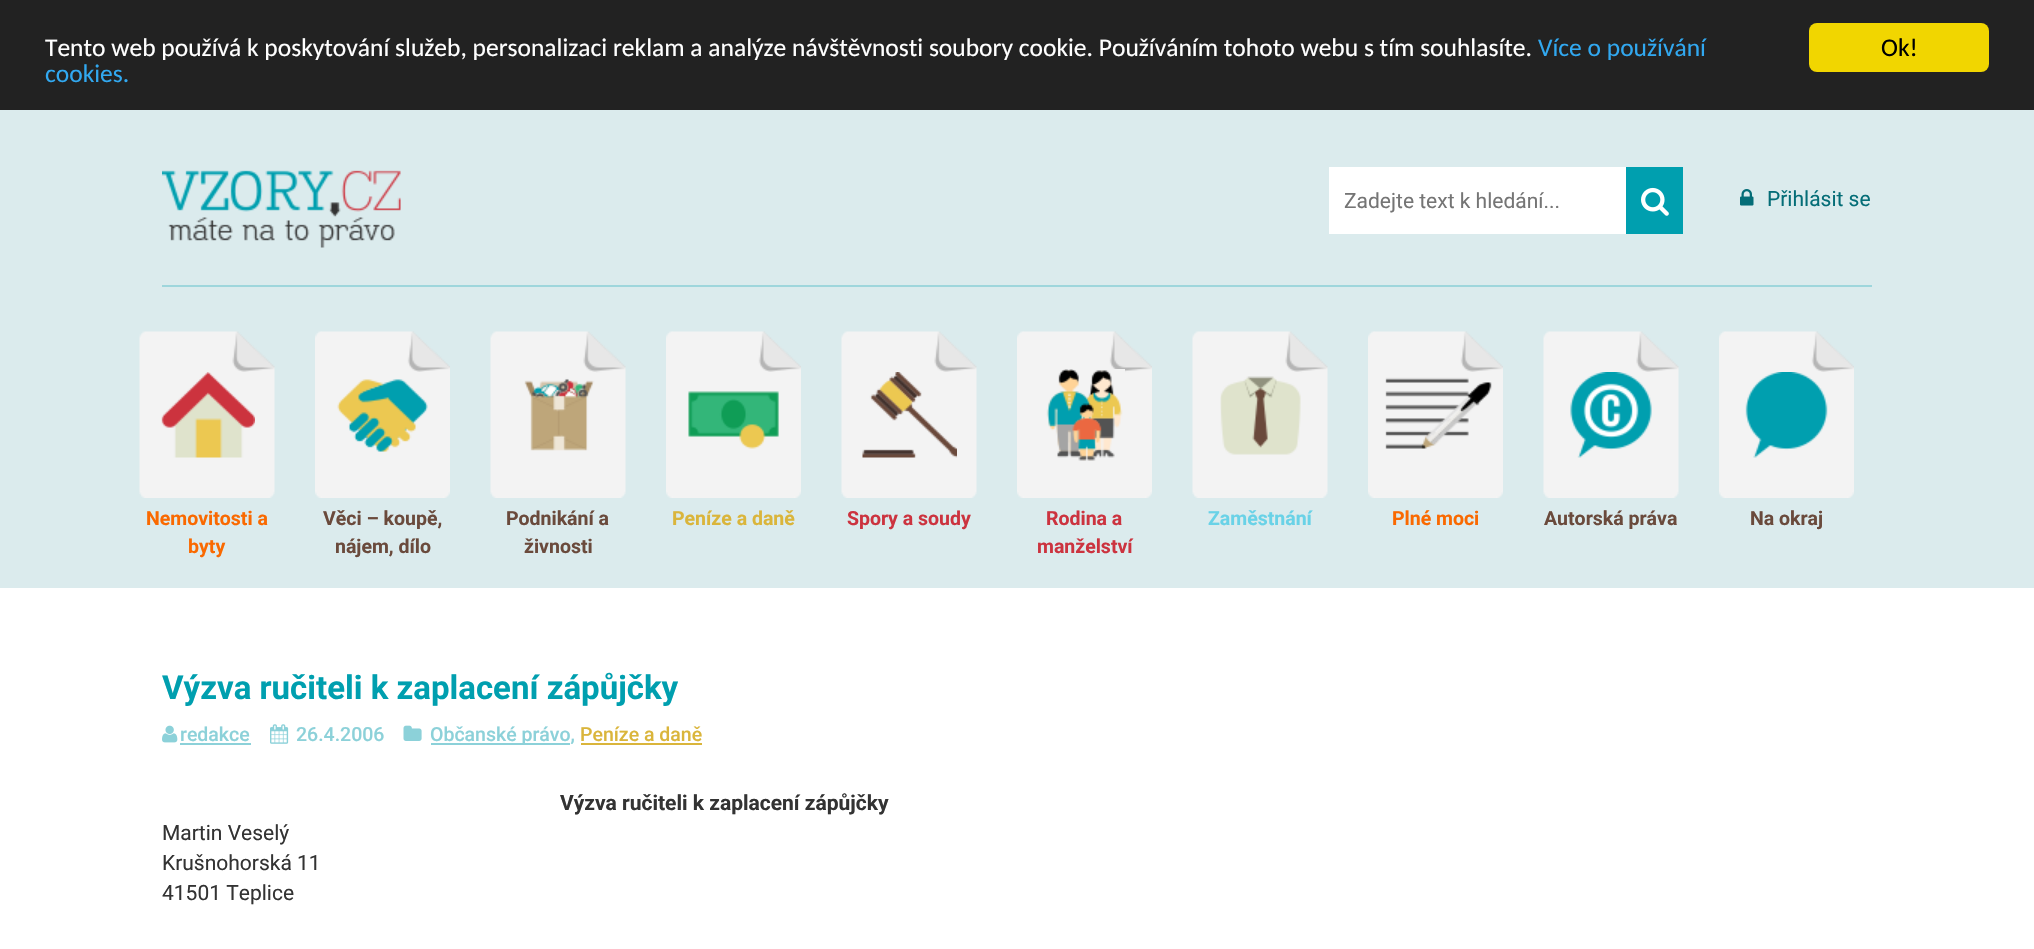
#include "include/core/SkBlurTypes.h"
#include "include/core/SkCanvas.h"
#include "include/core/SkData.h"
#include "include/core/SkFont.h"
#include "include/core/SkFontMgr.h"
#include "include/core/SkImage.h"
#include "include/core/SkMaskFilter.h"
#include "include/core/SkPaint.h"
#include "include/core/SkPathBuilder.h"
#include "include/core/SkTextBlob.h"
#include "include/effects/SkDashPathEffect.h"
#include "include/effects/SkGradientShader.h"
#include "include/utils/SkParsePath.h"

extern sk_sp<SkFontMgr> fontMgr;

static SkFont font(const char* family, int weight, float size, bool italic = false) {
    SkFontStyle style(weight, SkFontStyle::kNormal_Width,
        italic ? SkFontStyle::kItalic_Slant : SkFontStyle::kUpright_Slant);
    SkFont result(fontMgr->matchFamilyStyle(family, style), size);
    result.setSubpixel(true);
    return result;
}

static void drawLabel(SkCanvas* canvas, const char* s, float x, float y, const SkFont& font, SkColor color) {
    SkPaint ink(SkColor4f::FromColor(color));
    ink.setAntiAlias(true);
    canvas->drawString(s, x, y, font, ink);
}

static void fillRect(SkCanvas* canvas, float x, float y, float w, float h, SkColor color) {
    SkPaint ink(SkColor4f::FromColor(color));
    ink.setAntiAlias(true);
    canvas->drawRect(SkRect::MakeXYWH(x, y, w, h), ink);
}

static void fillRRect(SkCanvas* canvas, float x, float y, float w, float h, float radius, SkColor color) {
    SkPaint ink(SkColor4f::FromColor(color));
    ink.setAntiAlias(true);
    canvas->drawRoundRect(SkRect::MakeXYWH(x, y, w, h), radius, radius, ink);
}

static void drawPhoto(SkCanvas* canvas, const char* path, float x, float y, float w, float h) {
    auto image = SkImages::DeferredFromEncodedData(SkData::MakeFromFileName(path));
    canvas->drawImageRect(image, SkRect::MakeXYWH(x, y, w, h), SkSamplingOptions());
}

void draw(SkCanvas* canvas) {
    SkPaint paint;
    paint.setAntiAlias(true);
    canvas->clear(0xFFFFFFFF);
    fillRect(canvas, 0, 0, 2034, 110, 0xFF222222);
    SkFont font1 = font("Carlito", 400, 25.5f);
    drawLabel(canvas, "Tento web používá k poskytování služeb, personalizaci reklam a analýze návštěvnosti soubory cookie. Používáním tohoto webu s tím souhlasíte.", 45, 56, font1, 0xFFFFFFFF);
    drawLabel(canvas, "Více o používání", 1538, 56, font1, 0xFF31A8F0);
    drawLabel(canvas, "cookies.", 45, 82, font1, 0xFF31A8F0);
    fillRRect(canvas, 1809, 23, 180, 49, 8, 0xFFF1D600);
    drawLabel(canvas, "Ok!", 1881, 56, font1, 0xFF000000);
    fillRect(canvas, 0, 110, 2034, 478, 0xFFDBEBED);
    fillRect(canvas, 162, 285, 1710, 2, 0xFF9ED6DC);
    drawPhoto(canvas, "assets/img1.png", 162, 170, 239, 78);
    fillRect(canvas, 1329, 167, 297, 67, 0xFFFFFFFF);
    SkFont font2 = font("Roboto", 400, 21);
    drawLabel(canvas, "Zadejte text k hledání...", 1344, 208, font2, 0xFF757575);
    fillRect(canvas, 1626, 167, 57, 67, 0xFF009FAF);
    drawPhoto(canvas, "assets/img2.png", 1641, 187, 28, 29);
    drawPhoto(canvas, "assets/img3.png", 1740, 189, 14, 17);
    drawLabel(canvas, "Přihlásit se", 1767, 206, font2, 0xFF046D77);
    drawPhoto(canvas, "assets/img4.png", 139, 331, 136, 167);
    drawPhoto(canvas, "assets/img5.png", 161, 372, 94, 86);
    SkFont font3 = font("Roboto", 700, 19.5f);
    drawLabel(canvas, "Nemovitosti a", 146, 525, font3, 0xFFFA6900);
    drawLabel(canvas, "byty", 188, 553, font3, 0xFFFA6900);
    drawPhoto(canvas, "assets/img6.png", 315, 331, 135, 167);
    drawPhoto(canvas, "assets/img7.png", 337, 372, 91, 80);
    drawLabel(canvas, "Věci – koupě,", 323, 525, font3, 0xFF6A4A3C);
    drawLabel(canvas, "nájem, dílo", 335, 553, font3, 0xFF6A4A3C);
    drawPhoto(canvas, "assets/img4.png", 490, 331, 136, 167);
    drawPhoto(canvas, "assets/img8.png", 524, 372, 72, 79);
    drawLabel(canvas, "Podnikání a", 506, 525, font3, 0xFF6A4A3C);
    drawLabel(canvas, "živnosti", 524, 553, font3, 0xFF6A4A3C);
    drawPhoto(canvas, "assets/img9.png", 666, 331, 135, 167);
    drawPhoto(canvas, "assets/img10.png", 688, 372, 91, 77);
    drawLabel(canvas, "Peníze a daně", 672, 525, font3, 0xFFDAB53B);
    drawPhoto(canvas, "assets/img4.png", 841, 331, 136, 167);
    drawPhoto(canvas, "assets/img11.png", 862, 372, 95, 86);
    drawLabel(canvas, "Spory a soudy", 847, 525, font3, 0xFFCC333F);
    drawPhoto(canvas, "assets/img9.png", 1017, 331, 135, 167);
    drawPhoto(canvas, "assets/img12.png", 1046, 369, 79, 92);
    drawLabel(canvas, "Rodina a", 1046, 525, font3, 0xFFCC333F);
    drawLabel(canvas, "manželství", 1037, 553, font3, 0xFFCC333F);
    drawPhoto(canvas, "assets/img13.png", 1192, 331, 136, 167);
    drawPhoto(canvas, "assets/img14.png", 1220, 372, 81, 83);
    drawLabel(canvas, "Zaměstnání", 1208, 525, font3, 0xFF69D2E7);
    drawPhoto(canvas, "assets/img9.png", 1368, 331, 135, 167);
    drawPhoto(canvas, "assets/img15.png", 1385, 372, 107, 77);
    drawLabel(canvas, "Plné moci", 1392, 525, font3, 0xFFFA6900);
    drawPhoto(canvas, "assets/img4.png", 1543, 331, 136, 167);
    drawPhoto(canvas, "assets/img16.png", 1570, 372, 82, 86);
    drawLabel(canvas, "Autorská práva", 1544, 525, font3, 0xFF6A4A3C);
    drawPhoto(canvas, "assets/img9.png", 1719, 331, 135, 167);
    drawPhoto(canvas, "assets/img17.png", 1745, 372, 83, 86);
    drawLabel(canvas, "Na okraj", 1750, 525, font3, 0xFF6A4A3C);
    SkFont font4 = font("Roboto", 700, 33);
    drawLabel(canvas, "Výzva ručiteli k zaplacení zápůjčky", 162, 699, font4, 0xFF009FAF);
    drawPhoto(canvas, "assets/img18.png", 162, 725, 16, 18);
    SkFont font5 = font("Roboto", 500, 19.5f);
    drawLabel(canvas, "redakce", 180, 741, font5, 0xFF8CD1D9);
    fillRect(canvas, 180, 743, 71, 2, 0xFF8CD1D9);
    drawPhoto(canvas, "assets/img19.png", 270, 724, 19, 20);
    drawLabel(canvas, "26.4.2006", 296, 741, font5, 0xFF8CD1D9);
    drawPhoto(canvas, "assets/img20.png", 403, 725, 19, 16);
    fillRect(canvas, 431, 743, 139, 2, 0xFF8CD1D9);
    drawLabel(canvas, "Občanské právo,", 430, 741, font5, 0xFF8CD1D9);
    drawLabel(canvas, "Peníze a daně", 580, 741, font5, 0xFFDAB53B);
    fillRect(canvas, 581, 743, 121, 2, 0xFFDAB53B);
    SkFont font6 = font("Roboto", 700, 21);
    drawLabel(canvas, "Výzva ručiteli k zaplacení zápůjčky", 560, 810, font6, 0xFF333333);
    drawLabel(canvas, "Martin Veselý", 162, 840, font2, 0xFF333333);
    drawLabel(canvas, "Krušnohorská 11", 162, 870, font2, 0xFF333333);
    drawLabel(canvas, "41501 Teplice", 162, 900, font2, 0xFF333333);
}
